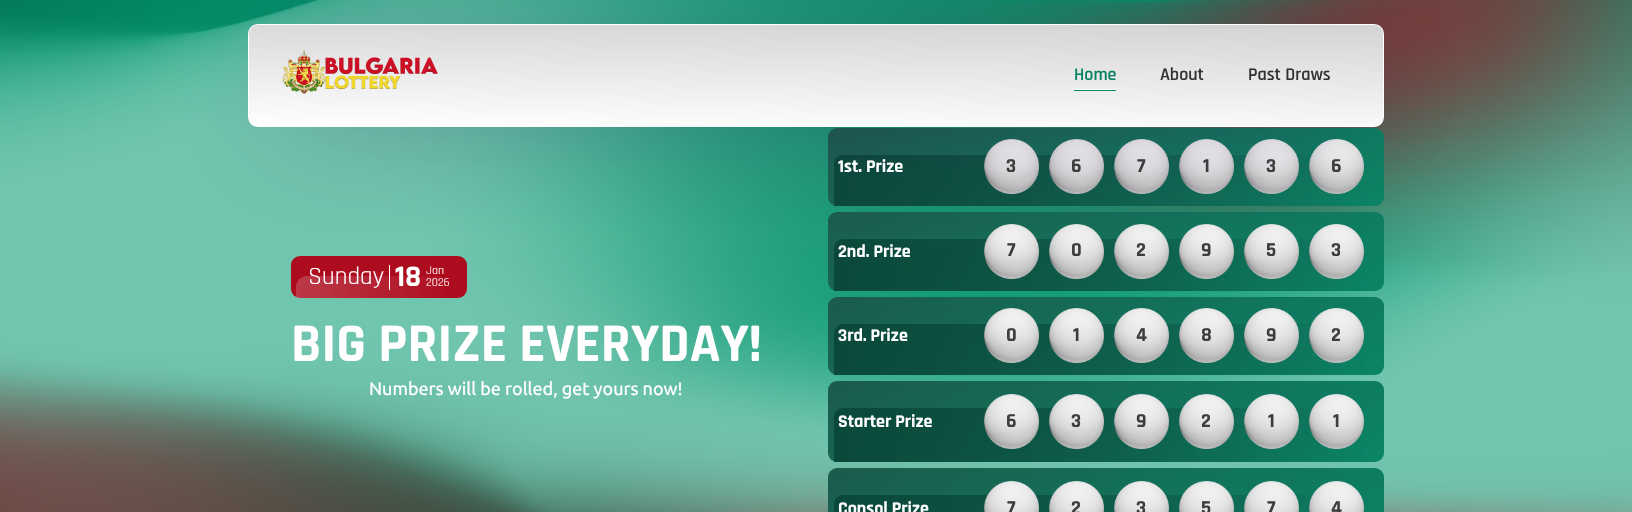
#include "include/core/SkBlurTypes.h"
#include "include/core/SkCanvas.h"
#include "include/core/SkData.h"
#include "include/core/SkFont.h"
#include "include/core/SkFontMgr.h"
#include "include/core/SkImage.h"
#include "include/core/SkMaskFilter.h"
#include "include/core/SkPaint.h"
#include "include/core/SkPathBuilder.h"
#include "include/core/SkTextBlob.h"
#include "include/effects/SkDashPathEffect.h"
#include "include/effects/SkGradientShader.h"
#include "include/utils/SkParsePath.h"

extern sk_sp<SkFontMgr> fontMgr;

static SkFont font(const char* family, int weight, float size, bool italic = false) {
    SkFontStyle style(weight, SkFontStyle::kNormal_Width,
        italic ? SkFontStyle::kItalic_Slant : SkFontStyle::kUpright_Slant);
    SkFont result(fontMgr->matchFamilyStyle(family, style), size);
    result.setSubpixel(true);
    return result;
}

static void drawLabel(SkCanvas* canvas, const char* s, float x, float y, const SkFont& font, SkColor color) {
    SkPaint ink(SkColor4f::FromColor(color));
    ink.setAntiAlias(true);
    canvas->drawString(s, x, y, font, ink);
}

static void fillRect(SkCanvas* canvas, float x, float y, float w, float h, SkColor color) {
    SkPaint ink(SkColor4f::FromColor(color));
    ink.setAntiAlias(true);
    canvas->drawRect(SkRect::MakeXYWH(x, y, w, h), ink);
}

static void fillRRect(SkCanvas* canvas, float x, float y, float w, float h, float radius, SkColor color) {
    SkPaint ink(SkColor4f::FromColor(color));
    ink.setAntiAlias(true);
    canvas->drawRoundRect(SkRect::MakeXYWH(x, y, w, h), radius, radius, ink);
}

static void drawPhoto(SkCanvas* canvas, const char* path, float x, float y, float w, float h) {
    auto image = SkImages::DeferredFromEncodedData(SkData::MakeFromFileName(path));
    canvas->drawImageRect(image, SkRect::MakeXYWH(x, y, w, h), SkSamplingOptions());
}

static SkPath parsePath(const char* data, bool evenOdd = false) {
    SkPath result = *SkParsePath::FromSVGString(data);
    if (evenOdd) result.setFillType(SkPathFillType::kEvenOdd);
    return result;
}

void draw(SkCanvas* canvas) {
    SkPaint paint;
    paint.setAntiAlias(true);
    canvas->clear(0xFFFFFFFF);
    drawPhoto(canvas, "assets/img2.png", 0, 0, 1632, 512);
    fillRRect(canvas, 291, 256, 176, 42, 9, 0xFFAD0C1E);
    fillRect(canvas, 389, 265, 1, 25, 0xFFFFFFFF);
    {
        const SkColor colors[] = {0x30FFFFFF, 0x00FFFFFF};
        const float stops[] = {0, 1};
        const SkPoint ends[] = {{295, 279}, {448, 311}};
        paint.setShader(SkGradientShader::MakeLinear(ends, colors, stops, 2, SkTileMode::kClamp));
        paint.setAlpha(255);
    }
    canvas->drawPath(parsePath("M307 276H436C442 276 447 281 447 287V298H296V287C296 281 301 276 307 276Z"), paint);
    {
        const SkColor colors[] = {0xFF0A8566, 0xFF1B5B4D};
        const float stops[] = {0, 1};
        const SkPoint ends[] = {{1188, 315}, {1024, 19}};
        paint.setShader(SkGradientShader::MakeLinear(ends, colors, stops, 2, SkTileMode::kClamp));
        paint.setAlpha(255);
    }
    canvas->drawRoundRect(SkRect::MakeXYWH(828, 128, 556, 78), 9, 9, paint);
    {
        const SkColor colors[] = {0xFF09483A, 0x0009483A};
        const float stops[] = {0, 1};
        const SkPoint ends[] = {{838, 136}, {1361, 248}};
        paint.setShader(SkGradientShader::MakeLinear(ends, colors, stops, 2, SkTileMode::kClamp));
        paint.setAlpha(255);
    }
    canvas->drawPath(parsePath("M843 155H1356C1361 155 1365 159 1365 164V206H834V164C834 159 838 155 843 155Z"), paint);
    drawPhoto(canvas, "assets/img3.png", 984, 139, 55, 55);
    drawPhoto(canvas, "assets/img4.png", 1049, 139, 55, 55);
    drawPhoto(canvas, "assets/img5.png", 1114, 139, 55, 55);
    drawPhoto(canvas, "assets/img6.png", 1179, 139, 55, 55);
    drawPhoto(canvas, "assets/img7.png", 1244, 139, 55, 55);
    drawPhoto(canvas, "assets/img8.png", 1309, 139, 55, 55);
    {
        const SkColor colors[] = {0xFF0A8566, 0xFF1B5B4D};
        const float stops[] = {0, 1};
        const SkPoint ends[] = {{1188, 400}, {1024, 103}};
        paint.setShader(SkGradientShader::MakeLinear(ends, colors, stops, 2, SkTileMode::kClamp));
        paint.setAlpha(255);
    }
    canvas->drawRoundRect(SkRect::MakeXYWH(828, 212, 556, 79), 9, 9, paint);
    {
        const SkColor colors[] = {0xFF09483A, 0x0009483A};
        const float stops[] = {0, 1};
        const SkPoint ends[] = {{838, 221}, {1361, 332}};
        paint.setShader(SkGradientShader::MakeLinear(ends, colors, stops, 2, SkTileMode::kClamp));
        paint.setAlpha(255);
    }
    canvas->drawPath(parsePath("M843 239H1356C1361 239 1365 243 1365 248V291H834V248C834 243 838 239 843 239Z"), paint);
    drawPhoto(canvas, "assets/img9.png", 984, 224, 55, 55);
    drawPhoto(canvas, "assets/img10.png", 1049, 224, 55, 55);
    drawPhoto(canvas, "assets/img11.png", 1114, 224, 55, 55);
    drawPhoto(canvas, "assets/img12.png", 1179, 224, 55, 55);
    drawPhoto(canvas, "assets/img13.png", 1244, 224, 55, 55);
    drawPhoto(canvas, "assets/img14.png", 1309, 224, 55, 55);
    paint.setShader(nullptr);
    paint.setColor(0xE035185A);
    paint.setMaskFilter(SkMaskFilter::MakeBlur(kNormal_SkBlurStyle, 63));
    canvas->drawRect(SkRect::MakeXYWH(288, 67, 1060, 27), paint);
    paint.setMaskFilter(nullptr);
    canvas->save();
    canvas->clipPath(parsePath("M258 24H1374C1379.5 24 1384 28.5 1384 34V117C1384 122.5 1379.5 127 1374 127H258C252.5 127 248 122.5 248 117V34C248 28.5 252.5 24 258 24Z"), true);
    {
        const SkColor colors[] = {0xFFFFFFFF, 0xFFD3D3D3};
        const float stops[] = {0, 1};
        const SkPoint ends[] = {{815, 136}, {817, 15}};
        paint.setShader(SkGradientShader::MakeLinear(ends, colors, stops, 2, SkTileMode::kClamp));
        paint.setAlpha(255);
    }
    canvas->drawRect(SkRect::MakeXYWH(249, 25, 1134, 101), paint);
    canvas->restore();
    paint.setStroke(true);
    paint.setStrokeWidth(1);
    paint.setShader(nullptr);
    paint.setColor(0xFFFFFFFF);
    canvas->drawRoundRect(SkRect::MakeXYWH(248.5f, 24.5f, 1135, 102), 9.5f, 9.5f, paint);
    drawPhoto(canvas, "assets/img1.png", 282, 50, 156, 44);
    fillRect(canvas, 1074, 90, 42, 1, 0xFF058363);
    SkFont font1 = font("Rajdhani", 600, 18);
    drawLabel(canvas, "Home", 1074, 80, font1, 0xFF058363);
    fillRect(canvas, 1074, 89, 42, 1, 0xFFFFFFFF);
    drawLabel(canvas, "About", 1160, 80, font1, 0xFF333333);
    drawLabel(canvas, "Past Draws", 1248, 80, font1, 0xFF333333);
    SkFont font2 = font("Rajdhani", 400, 25);
    drawLabel(canvas, "Sunday", 308, 284, font2, 0xFFFFFFFF);
    SkFont font3 = font("Rajdhani", 700, 30);
    drawLabel(canvas, "18", 395, 286, font3, 0xFFFFFFFF);
    SkFont font4 = font("Rajdhani", 400, 12);
    drawLabel(canvas, "Jan", 426, 274, font4, 0xFFFFFFFF);
    drawLabel(canvas, "2026", 426, 286, font4, 0xFFFFFFFF);
    SkFont font5 = font("Rajdhani", 700, 55);
    drawLabel(canvas, "BIG PRIZE EVERYDAY!", 291, 361, font5, 0xFFFFFFFF);
    SkFont font6 = font("Ubuntu", 400, 18);
    drawLabel(canvas, "Numbers will be rolled, get yours now!", 369, 395, font6, 0xFFFFFFFF);
    SkFont font7 = font("Rajdhani", 700, 18);
    drawLabel(canvas, "1st. Prize", 838, 172, font7, 0xFFFFFFFF);
    SkFont font8 = font("Rajdhani", 700, 20);
    drawLabel(canvas, "3", 1006, 172, font8, 0xFF3D3D3D);
    drawLabel(canvas, "6", 1071, 172, font8, 0xFF3D3D3D);
    drawLabel(canvas, "7", 1137, 172, font8, 0xFF3D3D3D);
    drawLabel(canvas, "1", 1203, 172, font8, 0xFF3D3D3D);
    drawLabel(canvas, "3", 1266, 172, font8, 0xFF3D3D3D);
    drawLabel(canvas, "6", 1331, 172, font8, 0xFF3D3D3D);
    drawLabel(canvas, "2nd. Prize", 838, 257, font7, 0xFFFFFFFF);
    drawLabel(canvas, "7", 1007, 256, font8, 0xFF3D3D3D);
    drawLabel(canvas, "0", 1071, 256, font8, 0xFF3D3D3D);
    drawLabel(canvas, "2", 1136, 256, font8, 0xFF3D3D3D);
    drawLabel(canvas, "9", 1201, 256, font8, 0xFF3D3D3D);
    drawLabel(canvas, "5", 1266, 256, font8, 0xFF3D3D3D);
    drawLabel(canvas, "3", 1331, 256, font8, 0xFF3D3D3D);
    paint.setStroke(false);
    {
        const SkColor colors[] = {0xFF0A8566, 0xFF1B5B4D};
        const float stops[] = {0, 1};
        const SkPoint ends[] = {{1188, 484}, {1024, 188}};
        paint.setShader(SkGradientShader::MakeLinear(ends, colors, stops, 2, SkTileMode::kClamp));
        paint.setAlpha(255);
    }
    canvas->drawRoundRect(SkRect::MakeXYWH(828, 297, 556, 78), 9, 9, paint);
    {
        const SkColor colors[] = {0xFF09483A, 0x0009483A};
        const float stops[] = {0, 1};
        const SkPoint ends[] = {{838, 305}, {1361, 417}};
        paint.setShader(SkGradientShader::MakeLinear(ends, colors, stops, 2, SkTileMode::kClamp));
        paint.setAlpha(255);
    }
    canvas->drawPath(parsePath("M843 324H1356C1361 324 1365 328 1365 333V375H834V333C834 328 838 324 843 324Z"), paint);
    drawLabel(canvas, "3rd. Prize", 838, 341, font7, 0xFFFFFFFF);
    drawPhoto(canvas, "assets/img3.png", 984, 308, 55, 55);
    drawLabel(canvas, "0", 1006, 341, font8, 0xFF3D3D3D);
    drawPhoto(canvas, "assets/img4.png", 1049, 308, 55, 55);
    drawLabel(canvas, "1", 1073, 341, font8, 0xFF3D3D3D);
    drawPhoto(canvas, "assets/img5.png", 1114, 308, 55, 55);
    drawLabel(canvas, "4", 1136, 341, font8, 0xFF3D3D3D);
    drawPhoto(canvas, "assets/img6.png", 1179, 308, 55, 55);
    drawLabel(canvas, "8", 1201, 341, font8, 0xFF3D3D3D);
    drawPhoto(canvas, "assets/img7.png", 1244, 308, 55, 55);
    drawLabel(canvas, "9", 1266, 341, font8, 0xFF3D3D3D);
    drawPhoto(canvas, "assets/img8.png", 1309, 308, 55, 55);
    drawLabel(canvas, "2", 1331, 341, font8, 0xFF3D3D3D);
    {
        const SkColor colors[] = {0xFF0A8566, 0xFF1B5B4D};
        const float stops[] = {0, 1};
        const SkPoint ends[] = {{1189, 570}, {1023, 273}};
        paint.setShader(SkGradientShader::MakeLinear(ends, colors, stops, 2, SkTileMode::kClamp));
        paint.setAlpha(255);
    }
    canvas->drawRoundRect(SkRect::MakeXYWH(828, 381, 556, 81), 9, 9, paint);
    {
        const SkColor colors[] = {0xFF09483A, 0x0009483A};
        const float stops[] = {0, 1};
        const SkPoint ends[] = {{838, 391}, {1361, 502}};
        paint.setShader(SkGradientShader::MakeLinear(ends, colors, stops, 2, SkTileMode::kClamp));
        paint.setAlpha(255);
    }
    canvas->drawPath(parsePath("M843 408H1356C1361 408 1365 412 1365 417V462H834V417C834 412 838 408 843 408Z"), paint);
    drawLabel(canvas, "Starter Prize", 838, 427, font7, 0xFFFFFFFF);
    drawPhoto(canvas, "assets/img15.png", 984, 394, 55, 55);
    drawLabel(canvas, "6", 1006, 427, font8, 0xFF3D3D3D);
    drawPhoto(canvas, "assets/img16.png", 1049, 394, 55, 55);
    drawLabel(canvas, "3", 1071, 427, font8, 0xFF3D3D3D);
    drawPhoto(canvas, "assets/img17.png", 1114, 394, 55, 55);
    drawLabel(canvas, "9", 1136, 427, font8, 0xFF3D3D3D);
    drawPhoto(canvas, "assets/img18.png", 1179, 394, 55, 55);
    drawLabel(canvas, "2", 1201, 427, font8, 0xFF3D3D3D);
    drawPhoto(canvas, "assets/img19.png", 1244, 394, 55, 55);
    drawLabel(canvas, "1", 1268, 427, font8, 0xFF3D3D3D);
    drawPhoto(canvas, "assets/img20.png", 1309, 394, 55, 55);
    drawLabel(canvas, "1", 1333, 427, font8, 0xFF3D3D3D);
    {
        const SkColor colors[] = {0xFF0A8566, 0xFF1B5B4D};
        const float stops[] = {0, 1};
        const SkPoint ends[] = {{1189, 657}, {1023, 360}};
        paint.setShader(SkGradientShader::MakeLinear(ends, colors, stops, 2, SkTileMode::kClamp));
        paint.setAlpha(255);
    }
    canvas->drawRoundRect(SkRect::MakeXYWH(828, 468, 556, 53), 9, 9, paint);
    {
        const SkColor colors[] = {0xFF09483A, 0x0009483A};
        const float stops[] = {0, 1};
        const SkPoint ends[] = {{838, 478}, {1361, 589}};
        paint.setShader(SkGradientShader::MakeLinear(ends, colors, stops, 2, SkTileMode::kClamp));
        paint.setAlpha(255);
    }
    canvas->drawPath(parsePath("M843 495H1356C1361 495 1365 499 1365 504V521H834V504C834 499 838 495 843 495Z"), paint);
    drawLabel(canvas, "Consol Prize", 838, 514, font7, 0xFFFFFFFF);
    drawPhoto(canvas, "assets/img21.png", 984, 481, 55, 31);
    drawLabel(canvas, "7", 1007, 514, font8, 0xFF3D3D3D);
    drawPhoto(canvas, "assets/img22.png", 1049, 481, 55, 31);
    drawLabel(canvas, "2", 1071, 514, font8, 0xFF3D3D3D);
    drawPhoto(canvas, "assets/img23.png", 1114, 481, 55, 31);
    drawLabel(canvas, "3", 1136, 514, font8, 0xFF3D3D3D);
    drawPhoto(canvas, "assets/img24.png", 1179, 481, 55, 31);
    drawLabel(canvas, "5", 1201, 514, font8, 0xFF3D3D3D);
    drawPhoto(canvas, "assets/img25.png", 1244, 481, 55, 31);
    drawLabel(canvas, "7", 1267, 514, font8, 0xFF3D3D3D);
    drawPhoto(canvas, "assets/img26.png", 1309, 481, 55, 31);
    drawLabel(canvas, "4", 1331, 514, font8, 0xFF3D3D3D);
}
